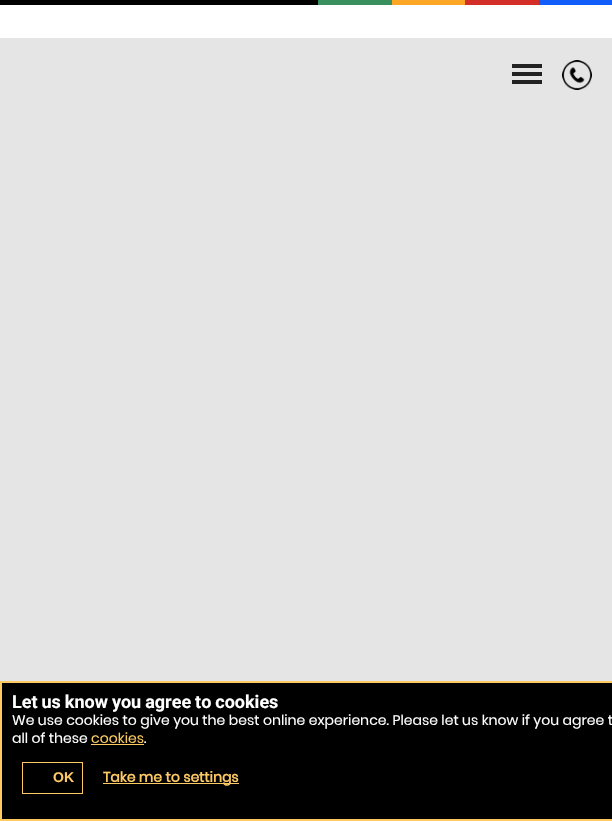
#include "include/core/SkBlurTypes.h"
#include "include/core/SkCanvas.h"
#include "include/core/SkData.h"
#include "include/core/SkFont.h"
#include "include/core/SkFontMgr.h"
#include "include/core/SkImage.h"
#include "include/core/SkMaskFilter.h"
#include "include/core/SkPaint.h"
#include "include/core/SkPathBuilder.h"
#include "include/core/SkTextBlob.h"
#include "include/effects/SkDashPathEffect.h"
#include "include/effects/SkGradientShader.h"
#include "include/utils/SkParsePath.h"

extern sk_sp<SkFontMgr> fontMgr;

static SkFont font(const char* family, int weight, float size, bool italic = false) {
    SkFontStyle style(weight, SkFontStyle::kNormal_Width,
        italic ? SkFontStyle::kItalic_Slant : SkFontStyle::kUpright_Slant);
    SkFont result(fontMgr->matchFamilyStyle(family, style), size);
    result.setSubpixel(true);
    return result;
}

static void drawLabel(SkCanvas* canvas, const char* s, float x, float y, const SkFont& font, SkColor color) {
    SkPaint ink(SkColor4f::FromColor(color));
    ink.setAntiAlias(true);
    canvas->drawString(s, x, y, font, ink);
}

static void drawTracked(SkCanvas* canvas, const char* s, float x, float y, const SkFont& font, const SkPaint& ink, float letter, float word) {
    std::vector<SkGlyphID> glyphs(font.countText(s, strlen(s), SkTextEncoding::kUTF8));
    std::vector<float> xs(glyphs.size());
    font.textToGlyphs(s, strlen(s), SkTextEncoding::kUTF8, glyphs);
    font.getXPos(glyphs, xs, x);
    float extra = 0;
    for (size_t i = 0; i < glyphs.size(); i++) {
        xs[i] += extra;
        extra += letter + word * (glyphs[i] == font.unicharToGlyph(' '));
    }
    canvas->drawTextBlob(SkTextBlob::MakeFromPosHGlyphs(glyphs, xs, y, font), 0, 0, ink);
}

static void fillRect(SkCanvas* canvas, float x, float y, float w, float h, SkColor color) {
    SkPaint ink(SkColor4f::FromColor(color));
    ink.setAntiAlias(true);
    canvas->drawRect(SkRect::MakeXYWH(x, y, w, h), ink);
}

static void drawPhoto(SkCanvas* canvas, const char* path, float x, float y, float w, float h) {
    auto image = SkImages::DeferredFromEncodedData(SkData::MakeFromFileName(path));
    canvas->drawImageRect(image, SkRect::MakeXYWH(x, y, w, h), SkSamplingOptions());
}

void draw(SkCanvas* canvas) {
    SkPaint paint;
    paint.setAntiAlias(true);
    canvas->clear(0xFFE5E5E5);
    fillRect(canvas, 0, 5, 612, 33, 0xFFFFFFFF);
    fillRect(canvas, 0, 0, 318, 5, 0xFF000000);
    fillRect(canvas, 318, 0, 74, 5, 0xFF398F5D);
    fillRect(canvas, 465, 0, 74, 5, 0xFFD32E28);
    fillRect(canvas, 512, 64, 30, 4, 0xFF222222);
    fillRect(canvas, 512, 72, 30, 4, 0xFF222222);
    fillRect(canvas, 512, 80, 30, 4, 0xFF222222);
    drawPhoto(canvas, "assets/img1.png", 562, 60, 30, 30);
    fillRect(canvas, 392, 0, 73, 5, 0xFFFCA626);
    fillRect(canvas, 539, 0, 73, 5, 0xFF115DF9);
    paint.setColor(0xFF000000);
    canvas->drawRect(SkRect::MakeXYWH(1, 682, 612, 138), paint);
    paint.setStroke(true);
    paint.setStrokeWidth(2);
    paint.setColor(0xFFFECA64);
    canvas->drawRect(SkRect::MakeXYWH(1, 682, 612, 138), paint);
    SkFont font1 = font("Roboto", 700, 18);
    paint.setStroke(false);
    paint.setColor(0xFFFFFFFF);
    drawTracked(canvas, "Let us know you agree to cookies", 12, 708, font1, paint, 0, -0.5f);
    SkFont font2 = font("Poppins", 400, 14);
    drawLabel(canvas, "We use cookies to give you the best online experience. Please let us know if you agree t", 12, 725, font2, 0xFFFFFFFF);
    drawLabel(canvas, "all of these", 12, 743, font2, 0xFFFFFFFF);
    drawLabel(canvas, "cookies", 91, 743, font2, 0xFFFECA64);
    fillRect(canvas, 91, 744, 53, 1, 0xFFFECA64);
    drawLabel(canvas, ".", 144, 743, font2, 0xFFFFFFFF);
    paint.setStroke(true);
    paint.setStrokeWidth(1);
    paint.setColor(0xFFFECA64);
    canvas->drawRect(SkRect::MakeXYWH(22.5f, 762.5f, 60, 31), paint);
    SkFont font3 = font("Liberation Sans", 700, 14);
    drawLabel(canvas, "OK", 53, 782, font3, 0xFFFECA64);
    fillRect(canvas, 103, 783, 136, 1, 0xFFFECA64);
    SkFont font4 = font("Poppins", 700, 14);
    drawLabel(canvas, "Take me to settings", 103, 782, font4, 0xFFFECA64);
}
